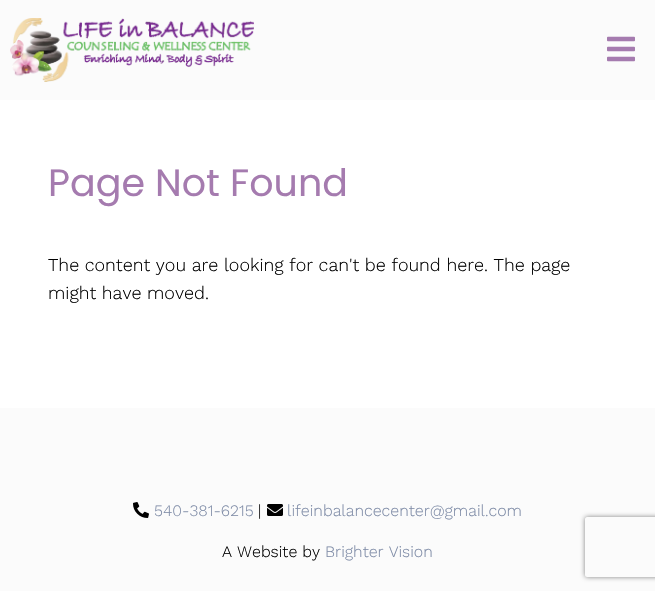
#include "include/core/SkBlurTypes.h"
#include "include/core/SkCanvas.h"
#include "include/core/SkData.h"
#include "include/core/SkFont.h"
#include "include/core/SkFontMgr.h"
#include "include/core/SkImage.h"
#include "include/core/SkMaskFilter.h"
#include "include/core/SkPaint.h"
#include "include/core/SkPathBuilder.h"
#include "include/core/SkTextBlob.h"
#include "include/effects/SkDashPathEffect.h"
#include "include/effects/SkGradientShader.h"
#include "include/utils/SkParsePath.h"

extern sk_sp<SkFontMgr> fontMgr;

static SkFont font(const char* family, int weight, float size, bool italic = false) {
    SkFontStyle style(weight, SkFontStyle::kNormal_Width,
        italic ? SkFontStyle::kItalic_Slant : SkFontStyle::kUpright_Slant);
    SkFont result(fontMgr->matchFamilyStyle(family, style), size);
    result.setSubpixel(true);
    return result;
}

static void drawLabel(SkCanvas* canvas, const char* s, float x, float y, const SkFont& font, SkColor color) {
    SkPaint ink(SkColor4f::FromColor(color));
    ink.setAntiAlias(true);
    canvas->drawString(s, x, y, font, ink);
}

static void fillRect(SkCanvas* canvas, float x, float y, float w, float h, SkColor color) {
    SkPaint ink(SkColor4f::FromColor(color));
    ink.setAntiAlias(true);
    canvas->drawRect(SkRect::MakeXYWH(x, y, w, h), ink);
}

static void drawPhoto(SkCanvas* canvas, const char* path, float x, float y, float w, float h) {
    auto image = SkImages::DeferredFromEncodedData(SkData::MakeFromFileName(path));
    canvas->drawImageRect(image, SkRect::MakeXYWH(x, y, w, h), SkSamplingOptions());
}

static SkPath parsePath(const char* data, bool evenOdd = false) {
    SkPath result = *SkParsePath::FromSVGString(data);
    if (evenOdd) result.setFillType(SkPathFillType::kEvenOdd);
    return result;
}

void draw(SkCanvas* canvas) {
    SkPaint paint;
    paint.setAntiAlias(true);
    canvas->clear(0xFFFFFFFF);
    fillRect(canvas, 0, 0, 655, 100, 0xFFFBFBFB);
    drawPhoto(canvas, "assets/img1.png", 10, 18, 244, 64);
    drawPhoto(canvas, "assets/img2.png", 607, 36, 28, 26);
    SkFont font1 = font("Poppins", 400, 38);
    drawLabel(canvas, "Page Not Found", 48, 196, font1, 0xFFA57BAF);
    SkFont font2 = font("Work Sans", 300, 18);
    drawLabel(canvas, "The content you are looking for can't be found here. The page", 48, 271, font2, 0xFF000000);
    drawLabel(canvas, "might have moved.", 48, 299, font2, 0xFF000000);
    fillRect(canvas, 0, 408, 655, 183, 0xFFFBFBFB);
    drawPhoto(canvas, "assets/img3.png", 133, 502, 16, 16);
    SkFont font3 = font("Work Sans", 300, 16);
    drawLabel(canvas, "540-381-6215", 154, 516, font3, 0xFF7F8CA7);
    drawLabel(canvas, "|", 258, 516, font3, 0xFF000000);
    drawPhoto(canvas, "assets/img4.png", 267, 504, 16, 12);
    drawLabel(canvas, "lifeinbalancecenter@gmail.com", 287, 516, font3, 0xFF7F8CA7);
    drawLabel(canvas, "A Website by", 222, 557, font3, 0xFF000000);
    drawLabel(canvas, "Brighter Vision", 325, 557, font3, 0xFF7F8CA7);
    canvas->save();
    canvas->clipPath(parsePath("M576 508H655V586H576ZM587 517H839C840 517 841 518 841 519V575C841 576 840 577 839 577H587C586 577 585 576 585 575V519C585 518 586 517 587 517Z", true), true);
    paint.setColor(0xFF808080);
    paint.setMaskFilter(SkMaskFilter::MakeBlur(kNormal_SkBlurStyle, 2.5f));
    canvas->drawRoundRect(SkRect::MakeXYWH(585, 517, 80, 60), 2, 2, paint);
    paint.setMaskFilter(nullptr);
    canvas->restore();
}
